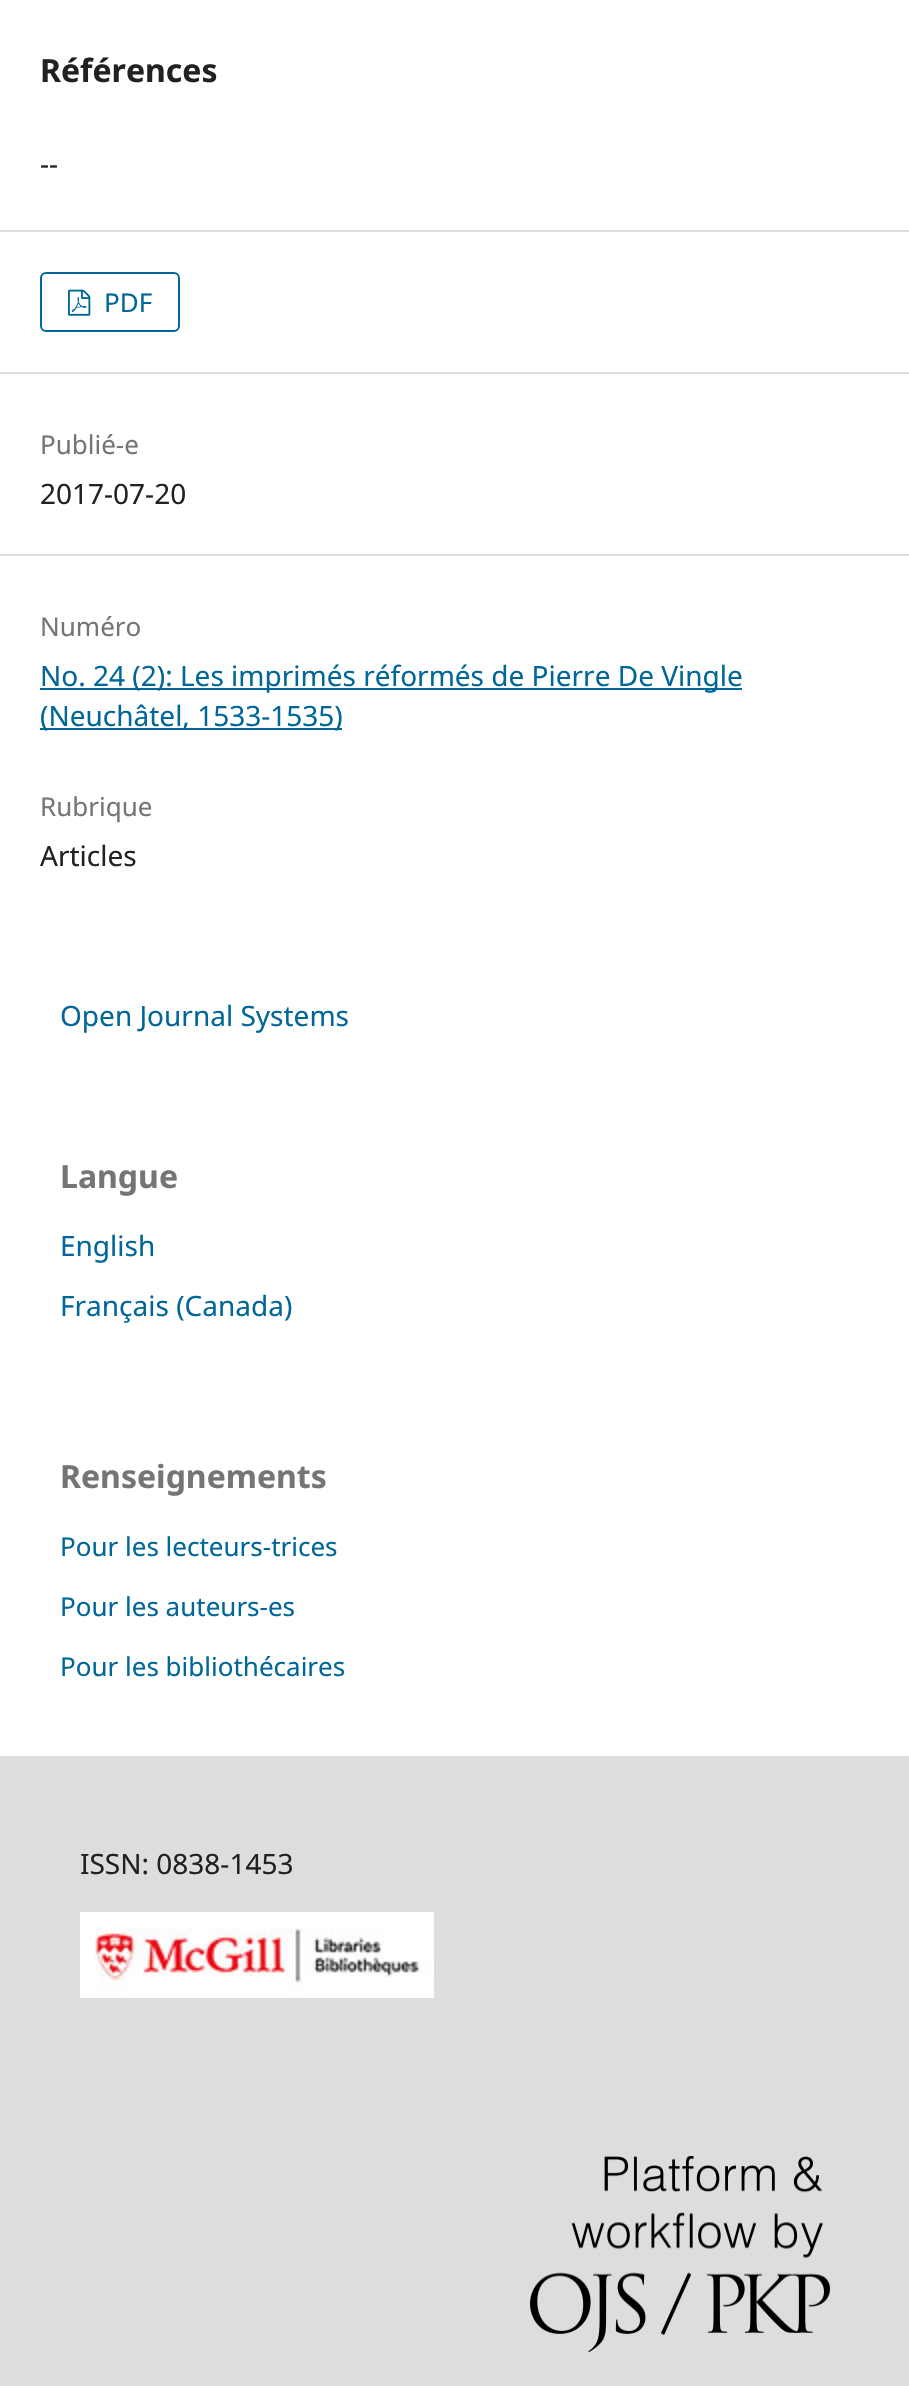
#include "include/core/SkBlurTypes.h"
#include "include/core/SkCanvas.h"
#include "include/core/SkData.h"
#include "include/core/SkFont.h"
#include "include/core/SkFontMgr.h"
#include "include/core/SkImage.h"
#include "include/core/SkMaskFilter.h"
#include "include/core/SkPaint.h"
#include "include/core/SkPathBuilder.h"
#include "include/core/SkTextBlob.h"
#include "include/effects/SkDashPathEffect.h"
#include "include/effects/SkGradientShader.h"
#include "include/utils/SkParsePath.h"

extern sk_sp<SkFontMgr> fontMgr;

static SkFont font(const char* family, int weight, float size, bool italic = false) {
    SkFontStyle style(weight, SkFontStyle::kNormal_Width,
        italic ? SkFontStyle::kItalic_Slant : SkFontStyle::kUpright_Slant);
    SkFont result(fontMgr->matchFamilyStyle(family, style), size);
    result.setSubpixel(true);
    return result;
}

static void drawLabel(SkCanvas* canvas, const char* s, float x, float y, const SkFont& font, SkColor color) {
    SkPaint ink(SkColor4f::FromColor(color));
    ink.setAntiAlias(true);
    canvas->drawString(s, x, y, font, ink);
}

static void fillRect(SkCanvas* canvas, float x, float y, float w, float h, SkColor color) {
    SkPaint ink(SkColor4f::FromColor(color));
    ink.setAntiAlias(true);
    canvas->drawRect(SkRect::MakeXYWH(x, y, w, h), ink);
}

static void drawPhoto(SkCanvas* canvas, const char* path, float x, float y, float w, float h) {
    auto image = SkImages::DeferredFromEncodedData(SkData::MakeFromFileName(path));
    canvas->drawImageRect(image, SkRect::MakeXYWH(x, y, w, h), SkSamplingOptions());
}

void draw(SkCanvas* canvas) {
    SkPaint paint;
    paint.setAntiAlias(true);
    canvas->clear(0xFFFFFFFF);
    SkFont font1 = font("Noto Sans", 700, 32);
    drawLabel(canvas, "Références", 40, 82, font1, 0xFF212121);
    SkFont font2 = font("Noto Sans", 400, 28);
    drawLabel(canvas, "--", 40, 174, font2, 0xFF212121);
    fillRect(canvas, 0, 230, 909, 2, 0xFFDDDDDD);
    fillRect(canvas, 0, 372, 909, 2, 0xFFDDDDDD);
    paint.setStroke(true);
    paint.setStrokeWidth(2);
    paint.setColor(0xFF006798);
    canvas->drawRoundRect(SkRect::MakeXYWH(41, 273, 138, 58), 5, 5, paint);
    drawPhoto(canvas, "assets/img1.png", 68, 289, 23, 27);
    SkFont font3 = font("Noto Sans", 400, 26);
    drawLabel(canvas, "PDF", 104, 312, font3, 0xFF006798);
    fillRect(canvas, 0, 554, 909, 2, 0xFFDDDDDD);
    drawLabel(canvas, "Publié-e", 40, 454, font3, 0xFF757575);
    drawLabel(canvas, "2017-07-20", 40, 504, font2, 0xFF212121);
    drawLabel(canvas, "Numéro", 40, 636, font3, 0xFF757575);
    fillRect(canvas, 40, 688, 702, 2, 0xFF006798);
    drawLabel(canvas, "No. 24 (2): Les imprimés réformés de Pierre De Vingle", 40, 686, font2, 0xFF006798);
    fillRect(canvas, 40, 728, 302, 2, 0xFF006798);
    drawLabel(canvas, "(Neuchâtel, 1533-1535)", 40, 726, font2, 0xFF006798);
    drawLabel(canvas, "Rubrique", 40, 816, font3, 0xFF757575);
    drawLabel(canvas, "Articles", 40, 866, font2, 0xFF212121);
    drawLabel(canvas, "Open Journal Systems", 60, 1026, font2, 0xFF006798);
    drawLabel(canvas, "Langue", 60, 1188, font1, 0xFF757575);
    drawLabel(canvas, "English", 60, 1256, font2, 0xFF006798);
    drawLabel(canvas, "Français (Canada)", 60, 1316, font2, 0xFF006798);
    drawLabel(canvas, "Renseignements", 60, 1488, font1, 0xFF757575);
    drawLabel(canvas, "Pour les lecteurs-trices", 60, 1556, font3, 0xFF006798);
    drawLabel(canvas, "Pour les auteurs-es", 60, 1616, font3, 0xFF006798);
    drawLabel(canvas, "Pour les bibliothécaires", 60, 1676, font3, 0xFF006798);
    fillRect(canvas, 0, 1756, 909, 630, 0xFFDDDDDD);
    drawLabel(canvas, "ISSN: 0838-1453", 80, 1874, font2, 0xFF212121);
    drawPhoto(canvas, "assets/img2.png", 80, 1912, 354, 86);
    drawPhoto(canvas, "assets/img3.png", 530, 2156, 300, 196);
}
